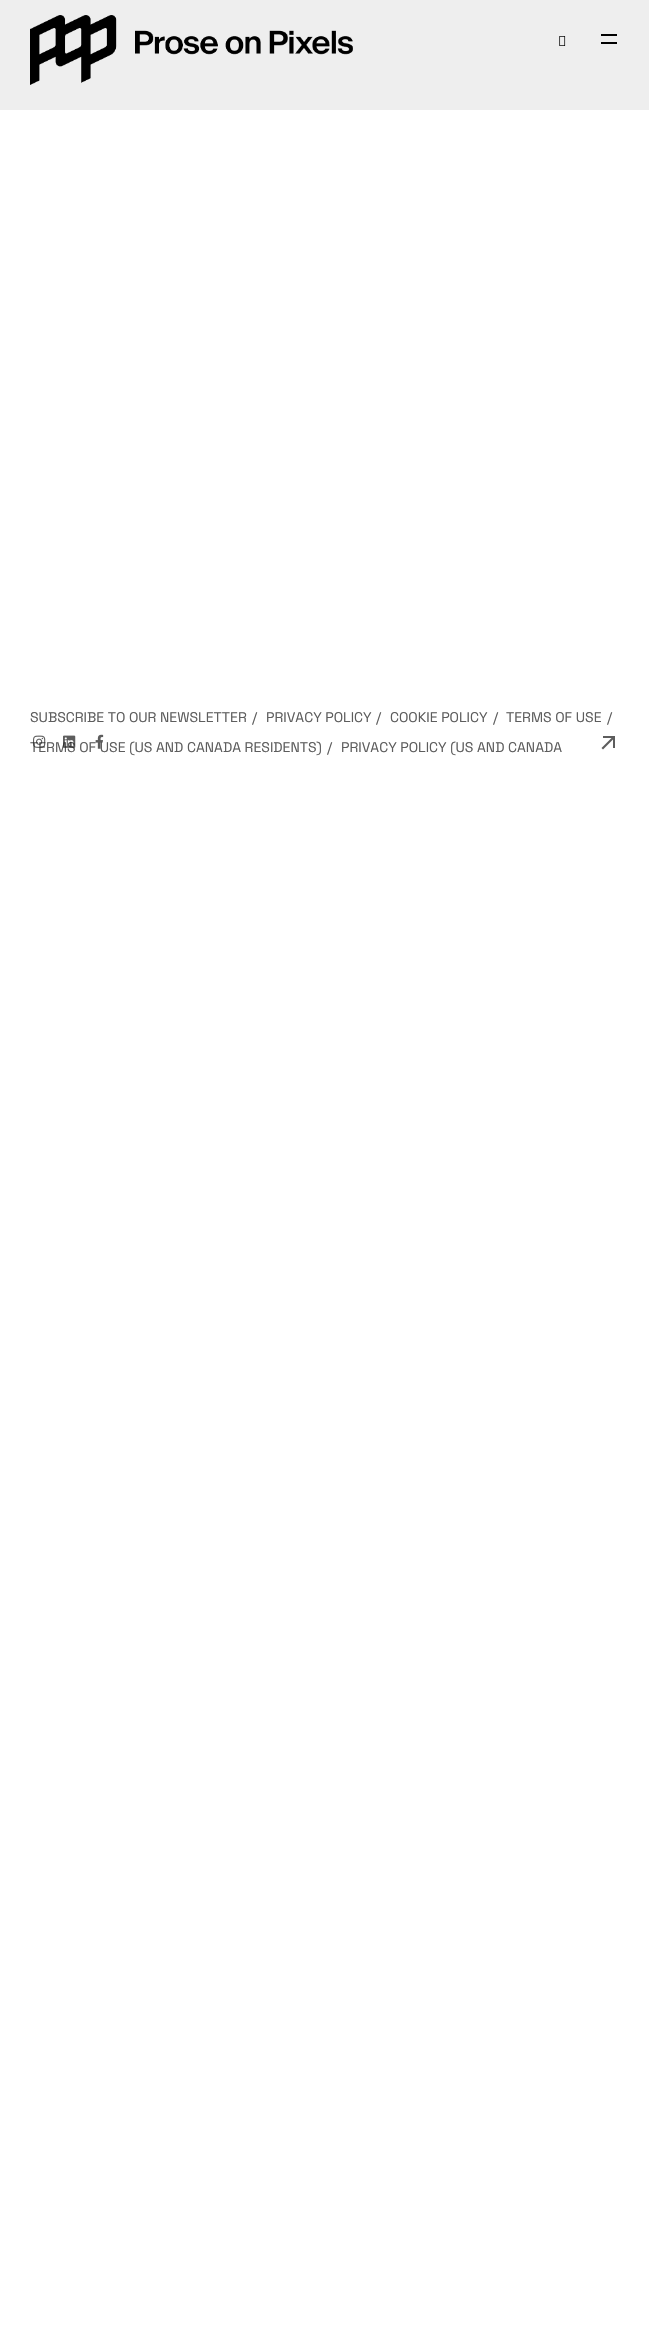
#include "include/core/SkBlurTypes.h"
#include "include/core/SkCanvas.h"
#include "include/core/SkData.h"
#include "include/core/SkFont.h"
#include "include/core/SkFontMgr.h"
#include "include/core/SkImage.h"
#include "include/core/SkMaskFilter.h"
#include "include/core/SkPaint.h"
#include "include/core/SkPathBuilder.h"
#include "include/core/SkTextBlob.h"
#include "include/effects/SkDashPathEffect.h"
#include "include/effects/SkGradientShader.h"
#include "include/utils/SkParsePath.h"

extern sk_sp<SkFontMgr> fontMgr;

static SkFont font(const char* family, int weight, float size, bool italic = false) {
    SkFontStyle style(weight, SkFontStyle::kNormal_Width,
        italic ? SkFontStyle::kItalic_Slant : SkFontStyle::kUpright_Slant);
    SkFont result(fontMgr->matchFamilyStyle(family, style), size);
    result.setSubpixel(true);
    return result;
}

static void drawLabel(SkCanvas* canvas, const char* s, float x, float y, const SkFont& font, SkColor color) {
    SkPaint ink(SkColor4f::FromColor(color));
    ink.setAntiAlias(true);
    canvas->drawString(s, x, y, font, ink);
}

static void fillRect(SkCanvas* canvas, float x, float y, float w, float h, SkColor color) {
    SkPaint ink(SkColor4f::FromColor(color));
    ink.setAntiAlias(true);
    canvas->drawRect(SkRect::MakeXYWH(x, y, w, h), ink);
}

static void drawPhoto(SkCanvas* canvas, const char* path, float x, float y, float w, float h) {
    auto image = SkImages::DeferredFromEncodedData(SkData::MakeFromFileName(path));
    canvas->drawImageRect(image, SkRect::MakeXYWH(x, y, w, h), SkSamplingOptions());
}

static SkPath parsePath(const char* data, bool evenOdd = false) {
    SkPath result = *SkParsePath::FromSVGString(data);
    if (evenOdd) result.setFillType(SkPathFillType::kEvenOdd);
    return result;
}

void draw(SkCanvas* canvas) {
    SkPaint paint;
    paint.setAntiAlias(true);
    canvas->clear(0xFFFFFFFF);
    fillRect(canvas, 0, 0, 649, 110, 0xFFEEEEEE);
    drawPhoto(canvas, "assets/img1.png", 30, 15, 323, 70);
    drawPhoto(canvas, "assets/img2.png", 559, 36, 7, 10);
    fillRect(canvas, 601, 34, 16, 2, 0xFF000000);
    fillRect(canvas, 601, 42, 16, 2, 0xFF000000);
    SkFont font1 = font("Space Grotesk", 400, 14);
    drawLabel(canvas, "SUBSCRIBE TO OUR NEWSLETTER", 30, 722, font1, 0xFF5D5D5D);
    drawLabel(canvas, "/", 252, 722, font1, 0xFF5D5D5D);
    drawLabel(canvas, "PRIVACY POLICY", 266, 722, font1, 0xFF5D5D5D);
    drawLabel(canvas, "/", 376, 722, font1, 0xFF5D5D5D);
    drawLabel(canvas, "COOKIE POLICY", 390, 722, font1, 0xFF5D5D5D);
    drawLabel(canvas, "/", 493, 722, font1, 0xFF5D5D5D);
    drawLabel(canvas, "TERMS OF USE", 506, 722, font1, 0xFF5D5D5D);
    drawLabel(canvas, "/", 607, 722, font1, 0xFF5D5D5D);
    drawLabel(canvas, "TERMS OF USE (US AND CANADA RESIDENTS)", 30, 752, font1, 0xFF5D5D5D);
    drawLabel(canvas, "/", 327, 752, font1, 0xFF5D5D5D);
    drawLabel(canvas, "PRIVACY POLICY (US AND CANADA", 341, 752, font1, 0xFF5D5D5D);
    drawPhoto(canvas, "assets/img3.png", 33, 735, 13, 13);
    drawPhoto(canvas, "assets/img4.png", 63, 735, 13, 13);
    drawPhoto(canvas, "assets/img5.png", 95, 734, 9, 15);
    fillRect(canvas, 603, 736, 12, 2, 0xFF5D5D5D);
    fillRect(canvas, 613, 736, 2, 12, 0xFF5D5D5D);
    paint.setColor(0xFF5D5D5D);
    canvas->drawPath(parsePath("M601.5 748L613 736.5L614.5 738L603 749.5Z"), paint);
}
